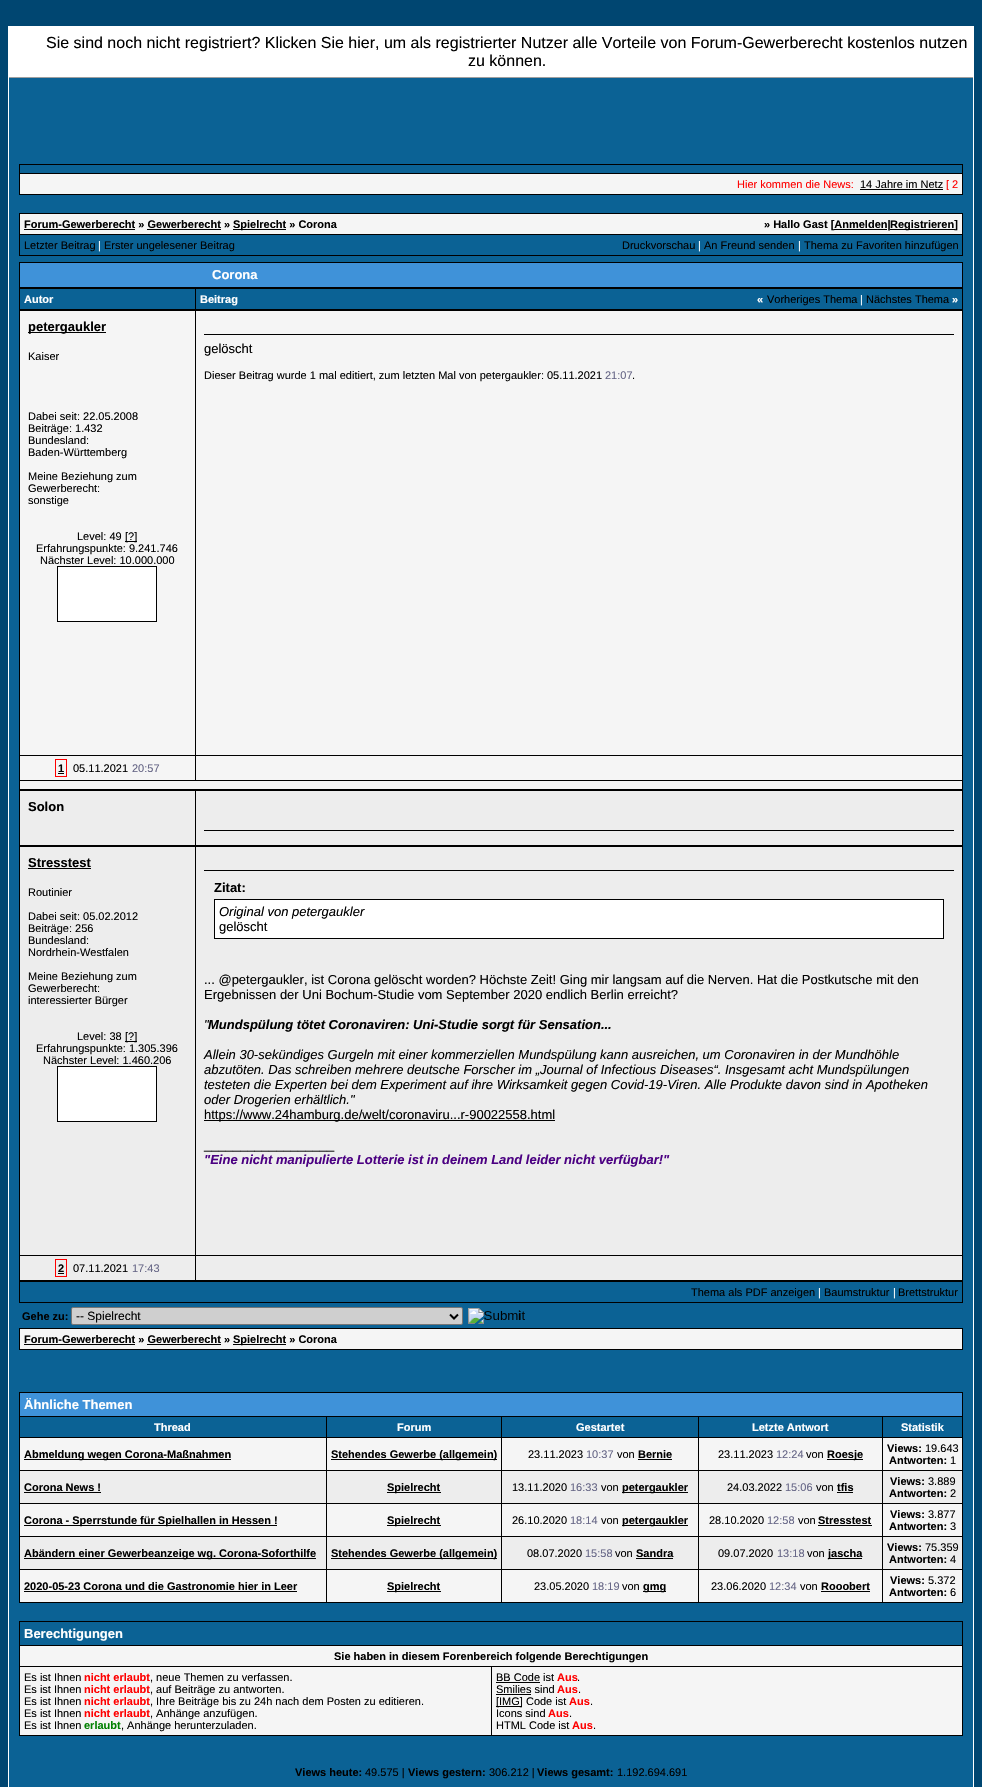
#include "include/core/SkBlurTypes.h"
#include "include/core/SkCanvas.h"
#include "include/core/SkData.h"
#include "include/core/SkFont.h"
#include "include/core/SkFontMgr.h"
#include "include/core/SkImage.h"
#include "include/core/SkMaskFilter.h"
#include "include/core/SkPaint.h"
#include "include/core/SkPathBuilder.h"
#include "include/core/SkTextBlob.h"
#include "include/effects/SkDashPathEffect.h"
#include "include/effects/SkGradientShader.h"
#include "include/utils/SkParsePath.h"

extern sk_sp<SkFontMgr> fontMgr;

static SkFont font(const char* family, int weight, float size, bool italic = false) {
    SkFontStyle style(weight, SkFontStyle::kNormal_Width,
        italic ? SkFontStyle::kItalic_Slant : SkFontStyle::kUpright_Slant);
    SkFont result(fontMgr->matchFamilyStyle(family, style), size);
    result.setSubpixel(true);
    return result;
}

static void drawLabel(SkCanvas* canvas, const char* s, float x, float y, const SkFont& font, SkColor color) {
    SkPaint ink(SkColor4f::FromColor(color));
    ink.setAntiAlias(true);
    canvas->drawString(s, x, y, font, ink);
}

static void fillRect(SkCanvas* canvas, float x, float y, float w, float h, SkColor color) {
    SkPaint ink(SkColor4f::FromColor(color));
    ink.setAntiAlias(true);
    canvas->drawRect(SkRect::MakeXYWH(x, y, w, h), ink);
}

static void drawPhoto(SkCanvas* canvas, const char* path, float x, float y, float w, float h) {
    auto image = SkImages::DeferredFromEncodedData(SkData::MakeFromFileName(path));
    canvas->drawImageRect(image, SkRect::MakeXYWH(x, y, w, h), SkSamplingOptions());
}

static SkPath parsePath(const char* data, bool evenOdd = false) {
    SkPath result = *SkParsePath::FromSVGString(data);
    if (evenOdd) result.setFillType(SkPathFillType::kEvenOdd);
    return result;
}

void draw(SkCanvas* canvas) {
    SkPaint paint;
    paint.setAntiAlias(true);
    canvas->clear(0xFF004671);
    fillRect(canvas, 8, 26, 966, 1761, 0xFFFFFFFF);
    fillRect(canvas, 9, 78, 964, 1709, 0xFF0B6295);
    fillRect(canvas, 9, 77, 964, 1, 0xFF9F9F9F);
    SkFont font1 = font("Liberation Sans", 400, 16);
    drawLabel(canvas, "Sie sind noch nicht registriert? Klicken Sie hier, um als registrierter Nutzer alle Vorteile von Forum-Gewerberecht kostenlos nutzen", 46, 48, font1, 0xFF000000);
    drawLabel(canvas, "zu können.", 468, 66, font1, 0xFF000000);
    fillRect(canvas, 19, 164, 944, 31, 0xFF000000);
    fillRect(canvas, 20, 165, 942, 8, 0xFF0B6295);
    fillRect(canvas, 20, 174, 942, 20, 0xFFF5F5F5);
    SkFont font2 = font("Liberation Sans", 400, 11);
    drawLabel(canvas, "Hier kommen die News:", 737, 188, font2, 0xFFFF0000);
    drawLabel(canvas, "14 Jahre im Netz", 860, 188, font2, 0xFF000000);
    fillRect(canvas, 860, 189, 83, 1, 0xFF000000);
    canvas->save();
    canvas->clipRect(SkRect::MakeXYWH(24, 178, 934, 12));
    drawLabel(canvas, "[", 946, 188, font2, 0xFFFF0000);
    canvas->restore();
    drawLabel(canvas, "2", 952, 188, font2, 0xFFFF0000);
    fillRect(canvas, 19, 213, 944, 43, 0xFF000000);
    fillRect(canvas, 20, 214, 942, 20, 0xFFF5F5F5);
    SkFont font3 = font("Liberation Sans", 700, 11);
    drawLabel(canvas, "Forum-Gewerberecht » Gewerberecht »", 24, 228, font3, 0xFF000000);
    fillRect(canvas, 24, 229, 111, 1, 0xFF000000);
    fillRect(canvas, 147, 229, 74, 1, 0xFF000000);
    fillRect(canvas, 233, 229, 53, 1, 0xFF000000);
    drawLabel(canvas, "Spielrecht » Corona", 233, 228, font3, 0xFF000000);
    drawLabel(canvas, "» Hallo Gast [Anmelden|", 764, 228, font3, 0xFF000000);
    fillRect(canvas, 834, 229, 53, 1, 0xFF000000);
    fillRect(canvas, 890, 229, 65, 1, 0xFF000000);
    drawLabel(canvas, "Registrieren]", 890, 228, font3, 0xFF000000);
    fillRect(canvas, 20, 235, 942, 20, 0xFF0B6295);
    drawLabel(canvas, "Letzter Beitrag", 24, 249, font2, 0xFF000000);
    drawLabel(canvas, "|", 98, 249, font2, 0xFFFFFFFF);
    drawLabel(canvas, "Erster ungelesener Beitrag", 104, 249, font2, 0xFF000000);
    drawLabel(canvas, "Druckvorschau", 622, 249, font2, 0xFF000000);
    drawLabel(canvas, "|", 698, 249, font2, 0xFFFFFFFF);
    drawLabel(canvas, "An Freund senden", 704, 249, font2, 0xFF000000);
    drawLabel(canvas, "|", 798, 249, font2, 0xFFFFFFFF);
    drawLabel(canvas, "Thema zu Favoriten hinzufügen", 804, 249, font2, 0xFF000000);
    fillRect(canvas, 19, 262, 944, 1041, 0xFF000000);
    fillRect(canvas, 20, 263, 942, 24, 0xFF3F92D9);
    SkFont font4 = font("Liberation Sans", 700, 13);
    drawLabel(canvas, "Corona", 212, 279, font4, 0xFFFFFFFF);
    fillRect(canvas, 20, 289, 175, 20, 0xFF0B6295);
    drawLabel(canvas, "Autor", 24, 303, font3, 0xFFFFFFFF);
    fillRect(canvas, 196, 289, 766, 20, 0xFF0B6295);
    drawLabel(canvas, "Beitrag", 200, 303, font3, 0xFFFFFFFF);
    drawLabel(canvas, "«", 757, 303, font3, 0xFFFFFFFF);
    drawLabel(canvas, "Vorheriges Thema", 767, 303, font2, 0xFF000000);
    drawLabel(canvas, "|", 860, 303, font2, 0xFFFFFFFF);
    drawLabel(canvas, "Nächstes Thema", 866, 303, font2, 0xFF000000);
    drawLabel(canvas, "»", 952, 303, font3, 0xFFFFFFFF);
    fillRect(canvas, 20, 311, 175, 444, 0xFFF5F5F5);
    fillRect(canvas, 28, 332, 78, 1, 0xFF000000);
    drawLabel(canvas, "petergaukler", 28, 331, font4, 0xFF000000);
    drawLabel(canvas, "Kaiser", 28, 360, font2, 0xFF000000);
    drawLabel(canvas, "Dabei seit: 22.05.2008", 28, 420, font2, 0xFF000000);
    drawLabel(canvas, "Beiträge: 1.432", 28, 432, font2, 0xFF000000);
    drawLabel(canvas, "Bundesland:", 28, 444, font2, 0xFF000000);
    drawLabel(canvas, "Baden-Württemberg", 28, 456, font2, 0xFF000000);
    drawLabel(canvas, "Meine Beziehung zum", 28, 480, font2, 0xFF000000);
    drawLabel(canvas, "Gewerberecht:", 28, 492, font2, 0xFF000000);
    drawLabel(canvas, "sonstige", 28, 504, font2, 0xFF000000);
    drawLabel(canvas, "Level: 49", 77, 540, font2, 0xFF000000);
    fillRect(canvas, 125, 541, 12, 1, 0xFF000000);
    drawLabel(canvas, "[?]", 125, 540, font2, 0xFF000000);
    drawLabel(canvas, "Erfahrungspunkte: 9.241.746", 36, 552, font2, 0xFF000000);
    drawLabel(canvas, "Nächster Level: 10.000.000", 40, 564, font2, 0xFF000000);
    fillRect(canvas, 57, 566, 100, 56, 0xFF000000);
    fillRect(canvas, 58, 567, 98, 54, 0xFFFFFFFF);
    fillRect(canvas, 196, 311, 766, 444, 0xFFF5F5F5);
    fillRect(canvas, 204, 334, 750, 1, 0xFF000000);
    SkFont font5 = font("Liberation Sans", 400, 13);
    drawLabel(canvas, "gelöscht", 204, 353, font5, 0xFF000000);
    drawLabel(canvas, "Dieser Beitrag wurde 1 mal editiert, zum letzten Mal von petergaukler: 05.11.2021", 204, 379, font2, 0xFF000000);
    drawLabel(canvas, "21:07", 605, 379, font2, 0xFF666686);
    drawLabel(canvas, ".", 632, 379, font2, 0xFF000000);
    fillRect(canvas, 20, 756, 175, 24, 0xFFF5F5F5);
    paint.setStroke(true);
    paint.setStrokeWidth(1);
    paint.setColor(0xFFFF0000);
    canvas->drawRect(SkRect::MakeXYWH(55.5f, 759.5f, 11, 17), paint);
    drawLabel(canvas, "1", 58, 772, font3, 0xFF000000);
    fillRect(canvas, 58, 773, 6, 1, 0xFF000000);
    drawLabel(canvas, "05.11.2021", 73, 772, font2, 0xFF000000);
    drawLabel(canvas, "20:57", 132, 772, font2, 0xFF666686);
    fillRect(canvas, 196, 756, 766, 24, 0xFFF5F5F5);
    fillRect(canvas, 20, 781, 942, 8, 0xFFF5F5F5);
    fillRect(canvas, 20, 791, 175, 54, 0xFFEDEDED);
    drawLabel(canvas, "Solon", 28, 811, font4, 0xFF000000);
    fillRect(canvas, 196, 791, 766, 54, 0xFFEDEDED);
    fillRect(canvas, 204, 830, 750, 1, 0xFF000000);
    fillRect(canvas, 20, 847, 175, 408, 0xFFEDEDED);
    drawLabel(canvas, "Stresstest", 28, 867, font4, 0xFF000000);
    fillRect(canvas, 28, 868, 63, 1, 0xFF000000);
    drawLabel(canvas, "Routinier", 28, 896, font2, 0xFF000000);
    drawLabel(canvas, "Dabei seit: 05.02.2012", 28, 920, font2, 0xFF000000);
    drawLabel(canvas, "Beiträge: 256", 28, 932, font2, 0xFF000000);
    drawLabel(canvas, "Bundesland:", 28, 944, font2, 0xFF000000);
    drawLabel(canvas, "Nordrhein-Westfalen", 28, 956, font2, 0xFF000000);
    drawLabel(canvas, "Meine Beziehung zum", 28, 980, font2, 0xFF000000);
    drawLabel(canvas, "Gewerberecht:", 28, 992, font2, 0xFF000000);
    drawLabel(canvas, "interessierter Bürger", 28, 1004, font2, 0xFF000000);
    drawLabel(canvas, "Level: 38", 77, 1040, font2, 0xFF000000);
    fillRect(canvas, 125, 1041, 12, 1, 0xFF000000);
    drawLabel(canvas, "[?]", 125, 1040, font2, 0xFF000000);
    drawLabel(canvas, "Erfahrungspunkte: 1.305.396", 36, 1052, font2, 0xFF000000);
    drawLabel(canvas, "Nächster Level: 1.460.206", 43, 1064, font2, 0xFF000000);
    fillRect(canvas, 57, 1066, 100, 56, 0xFF000000);
    fillRect(canvas, 58, 1067, 98, 54, 0xFFFFFFFF);
    fillRect(canvas, 196, 847, 766, 408, 0xFFEDEDED);
    fillRect(canvas, 204, 870, 750, 1, 0xFF000000);
    drawLabel(canvas, "Zitat:", 214, 892, font4, 0xFF000000);
    fillRect(canvas, 214, 899, 730, 40, 0xFF000000);
    fillRect(canvas, 215, 900, 728, 38, 0xFFFFFFFF);
    SkFont font6 = font("Liberation Sans", 400, 13, true);
    drawLabel(canvas, "Original von petergaukler", 219, 916, font6, 0xFF000000);
    drawLabel(canvas, "gelöscht", 219, 931, font5, 0xFF000000);
    drawLabel(canvas, "... @petergaukler, ist Corona gelöscht worden? Höchste Zeit! Ging mir langsam auf die Nerven. Hat die Postkutsche mit den", 204, 984, font5, 0xFF000000);
    drawLabel(canvas, "Ergebnissen der Uni Bochum-Studie vom September 2020 endlich Berlin erreicht?", 204, 999, font5, 0xFF000000);
    drawLabel(canvas, "\"", 204, 1029, font6, 0xFF000000);
    SkFont font7 = font("Liberation Sans", 700, 13, true);
    drawLabel(canvas, "Mundspülung tötet Coronaviren: Uni-Studie sorgt für Sensation...", 208, 1029, font7, 0xFF000000);
    drawLabel(canvas, "Allein 30-sekündiges Gurgeln mit einer kommerziellen Mundspülung kann ausreichen, um Coronaviren in der Mundhöhle", 204, 1059, font6, 0xFF000000);
    drawLabel(canvas, "abzutöten. Das schreiben mehrere deutsche Forscher im „Journal of Infectious Diseases“. Insgesamt acht Mundspülungen", 204, 1074, font6, 0xFF000000);
    drawLabel(canvas, "testeten die Experten bei dem Experiment auf ihre Wirksamkeit gegen Covid-19-Viren. Alle Produkte davon sind in Apotheken", 204, 1089, font6, 0xFF000000);
    drawLabel(canvas, "oder Drogerien erhältlich.\"", 204, 1104, font6, 0xFF000000);
    fillRect(canvas, 204, 1120, 351, 1, 0xFF000000);
    drawLabel(canvas, "https://www.24hamburg.de/welt/coronaviru...r-90022558.html", 204, 1119, font5, 0xFF000000);
    drawLabel(canvas, "__________________", 204, 1149, font5, 0xFF000000);
    drawLabel(canvas, "\"Eine nicht manipulierte Lotterie ist in deinem Land leider nicht verfügbar!\"", 204, 1164, font7, 0xFF4B0082);
    fillRect(canvas, 20, 1256, 175, 24, 0xFFEDEDED);
    canvas->drawRect(SkRect::MakeXYWH(55.5f, 1259.5f, 11, 17), paint);
    drawLabel(canvas, "2", 58, 1272, font3, 0xFF000000);
    fillRect(canvas, 58, 1273, 6, 1, 0xFF000000);
    drawLabel(canvas, "07.11.2021", 73, 1272, font2, 0xFF000000);
    drawLabel(canvas, "17:43", 132, 1272, font2, 0xFF666686);
    fillRect(canvas, 196, 1256, 766, 24, 0xFFEDEDED);
    fillRect(canvas, 20, 1282, 942, 20, 0xFF0B6295);
    drawLabel(canvas, "Thema als PDF anzeigen", 691, 1296, font2, 0xFF000000);
    drawLabel(canvas, "|", 818, 1296, font2, 0xFFFFFFFF);
    drawLabel(canvas, "Baumstruktur", 824, 1296, font2, 0xFF000000);
    drawLabel(canvas, "|", 893, 1296, font2, 0xFFFFFFFF);
    drawLabel(canvas, "Brettstruktur", 898, 1296, font2, 0xFF000000);
    drawLabel(canvas, "Gehe zu:", 22, 1320, font3, 0xFF000000);
    paint.setStroke(false);
    paint.setColor(0xFFCFCFCF);
    canvas->drawRoundRect(SkRect::MakeXYWH(71.5f, 1307.5f, 391, 17), 1.5f, 1.5f, paint);
    paint.setStroke(true);
    paint.setColor(0xFF767676);
    canvas->drawRoundRect(SkRect::MakeXYWH(71.5f, 1307.5f, 391, 17), 1.5f, 1.5f, paint);
    paint.setStrokeWidth(2);
    paint.setColor(0xFF000000);
    canvas->drawPath(parsePath("M450 1314.5L454 1318.5L458 1314.5"), paint);
    SkFont font8 = font("Liberation Sans", 400, 12);
    drawLabel(canvas, "-- Spielrecht", 76, 1320, font8, 0xFF000000);
    drawPhoto(canvas, "assets/img1.png", 468, 1308, 57, 16);
    drawLabel(canvas, "i", 518, 1320, font5, 0xFF000000);
    fillRect(canvas, 19, 1328, 944, 22, 0xFF000000);
    fillRect(canvas, 20, 1329, 942, 20, 0xFFF5F5F5);
    drawLabel(canvas, "Forum-Gewerberecht » Gewerberecht »", 24, 1343, font3, 0xFF000000);
    fillRect(canvas, 24, 1344, 111, 1, 0xFF000000);
    fillRect(canvas, 147, 1344, 74, 1, 0xFF000000);
    fillRect(canvas, 233, 1344, 53, 1, 0xFF000000);
    drawLabel(canvas, "Spielrecht » Corona", 233, 1343, font3, 0xFF000000);
    fillRect(canvas, 19, 1392, 944, 211, 0xFF000000);
    fillRect(canvas, 20, 1393, 942, 23, 0xFF3F92D9);
    drawLabel(canvas, "Ähnliche Themen", 24, 1409, font4, 0xFFFFFFFF);
    fillRect(canvas, 20, 1417, 306, 20, 0xFF0B6295);
    drawLabel(canvas, "Thread", 154, 1431, font3, 0xFFFFFFFF);
    fillRect(canvas, 327, 1417, 174, 20, 0xFF0B6295);
    drawLabel(canvas, "Forum", 397, 1431, font3, 0xFFFFFFFF);
    fillRect(canvas, 502, 1417, 196, 20, 0xFF0B6295);
    drawLabel(canvas, "Gestartet", 576, 1431, font3, 0xFFFFFFFF);
    fillRect(canvas, 699, 1417, 183, 20, 0xFF0B6295);
    drawLabel(canvas, "Letzte Antwort", 752, 1431, font3, 0xFFFFFFFF);
    fillRect(canvas, 883, 1417, 79, 20, 0xFF0B6295);
    drawLabel(canvas, "Statistik", 901, 1431, font3, 0xFFFFFFFF);
    fillRect(canvas, 20, 1438, 306, 32, 0xFFF5F5F5);
    fillRect(canvas, 24, 1459, 207, 1, 0xFF000000);
    drawLabel(canvas, "Abmeldung wegen Corona-Maßnahmen", 24, 1458, font3, 0xFF000000);
    fillRect(canvas, 327, 1438, 174, 32, 0xFFF5F5F5);
    fillRect(canvas, 331, 1459, 166, 1, 0xFF000000);
    drawLabel(canvas, "Stehendes Gewerbe (allgemein)", 331, 1458, font3, 0xFF000000);
    fillRect(canvas, 502, 1438, 196, 32, 0xFFF5F5F5);
    drawLabel(canvas, "23.11.2023", 528, 1458, font2, 0xFF000000);
    drawLabel(canvas, "10:37", 586, 1458, font2, 0xFF666686);
    drawLabel(canvas, "von", 617, 1458, font2, 0xFF000000);
    drawLabel(canvas, "Bernie", 638, 1458, font3, 0xFF000000);
    fillRect(canvas, 638, 1459, 34, 1, 0xFF000000);
    fillRect(canvas, 699, 1438, 183, 32, 0xFFF5F5F5);
    drawLabel(canvas, "23.11.2023", 718, 1458, font2, 0xFF000000);
    drawLabel(canvas, "12:24", 776, 1458, font2, 0xFF666686);
    drawLabel(canvas, "von", 806, 1458, font2, 0xFF000000);
    fillRect(canvas, 827, 1459, 36, 1, 0xFF000000);
    drawLabel(canvas, "Roesje", 827, 1458, font3, 0xFF000000);
    fillRect(canvas, 883, 1438, 79, 32, 0xFFF5F5F5);
    drawLabel(canvas, "Views:", 887, 1452, font3, 0xFF000000);
    drawLabel(canvas, "19.643", 925, 1452, font2, 0xFF000000);
    drawLabel(canvas, "Antworten:", 889, 1464, font3, 0xFF000000);
    drawLabel(canvas, "1", 950, 1464, font2, 0xFF000000);
    fillRect(canvas, 20, 1471, 306, 32, 0xFFEDEDED);
    drawLabel(canvas, "Corona News !", 24, 1491, font3, 0xFF000000);
    fillRect(canvas, 24, 1492, 77, 1, 0xFF000000);
    fillRect(canvas, 327, 1471, 174, 32, 0xFFEDEDED);
    fillRect(canvas, 387, 1492, 54, 1, 0xFF000000);
    drawLabel(canvas, "Spielrecht", 387, 1491, font3, 0xFF000000);
    fillRect(canvas, 502, 1471, 196, 32, 0xFFEDEDED);
    drawLabel(canvas, "13.11.2020", 512, 1491, font2, 0xFF000000);
    drawLabel(canvas, "16:33", 570, 1491, font2, 0xFF666686);
    drawLabel(canvas, "von", 601, 1491, font2, 0xFF000000);
    fillRect(canvas, 622, 1492, 66, 1, 0xFF000000);
    drawLabel(canvas, "petergaukler", 622, 1491, font3, 0xFF000000);
    fillRect(canvas, 699, 1471, 183, 32, 0xFFEDEDED);
    drawLabel(canvas, "24.03.2022", 727, 1491, font2, 0xFF000000);
    drawLabel(canvas, "15:06", 785, 1491, font2, 0xFF666686);
    drawLabel(canvas, "von", 816, 1491, font2, 0xFF000000);
    drawLabel(canvas, "tfis", 837, 1491, font3, 0xFF000000);
    fillRect(canvas, 837, 1492, 16, 1, 0xFF000000);
    fillRect(canvas, 883, 1471, 79, 32, 0xFFEDEDED);
    drawLabel(canvas, "Views:", 890, 1485, font3, 0xFF000000);
    drawLabel(canvas, "3.889", 928, 1485, font2, 0xFF000000);
    drawLabel(canvas, "Antworten:", 889, 1497, font3, 0xFF000000);
    drawLabel(canvas, "2", 950, 1497, font2, 0xFF000000);
    fillRect(canvas, 20, 1504, 306, 32, 0xFFF5F5F5);
    fillRect(canvas, 24, 1525, 253, 1, 0xFF000000);
    drawLabel(canvas, "Corona - Sperrstunde für Spielhallen in Hessen !", 24, 1524, font3, 0xFF000000);
    fillRect(canvas, 327, 1504, 174, 32, 0xFFF5F5F5);
    fillRect(canvas, 387, 1525, 54, 1, 0xFF000000);
    drawLabel(canvas, "Spielrecht", 387, 1524, font3, 0xFF000000);
    fillRect(canvas, 502, 1504, 196, 32, 0xFFF5F5F5);
    drawLabel(canvas, "26.10.2020", 512, 1524, font2, 0xFF000000);
    drawLabel(canvas, "18:14", 570, 1524, font2, 0xFF666686);
    drawLabel(canvas, "von", 601, 1524, font2, 0xFF000000);
    fillRect(canvas, 622, 1525, 66, 1, 0xFF000000);
    drawLabel(canvas, "petergaukler", 622, 1524, font3, 0xFF000000);
    fillRect(canvas, 699, 1504, 183, 32, 0xFFF5F5F5);
    drawLabel(canvas, "28.10.2020", 709, 1524, font2, 0xFF000000);
    drawLabel(canvas, "12:58", 767, 1524, font2, 0xFF666686);
    drawLabel(canvas, "von", 798, 1524, font2, 0xFF000000);
    drawLabel(canvas, "Stresstest", 818, 1524, font3, 0xFF000000);
    fillRect(canvas, 818, 1525, 54, 1, 0xFF000000);
    fillRect(canvas, 883, 1504, 79, 32, 0xFFF5F5F5);
    drawLabel(canvas, "Views:", 890, 1518, font3, 0xFF000000);
    drawLabel(canvas, "3.877", 928, 1518, font2, 0xFF000000);
    drawLabel(canvas, "Antworten:", 889, 1530, font3, 0xFF000000);
    drawLabel(canvas, "3", 950, 1530, font2, 0xFF000000);
    fillRect(canvas, 20, 1537, 306, 32, 0xFFEDEDED);
    fillRect(canvas, 24, 1558, 292, 1, 0xFF000000);
    drawLabel(canvas, "Abändern einer Gewerbeanzeige wg. Corona-Soforthilfe", 24, 1557, font3, 0xFF000000);
    fillRect(canvas, 327, 1537, 174, 32, 0xFFEDEDED);
    fillRect(canvas, 331, 1558, 166, 1, 0xFF000000);
    drawLabel(canvas, "Stehendes Gewerbe (allgemein)", 331, 1557, font3, 0xFF000000);
    fillRect(canvas, 502, 1537, 196, 32, 0xFFEDEDED);
    drawLabel(canvas, "08.07.2020", 527, 1557, font2, 0xFF000000);
    drawLabel(canvas, "15:58", 585, 1557, font2, 0xFF666686);
    drawLabel(canvas, "von", 615, 1557, font2, 0xFF000000);
    drawLabel(canvas, "Sandra", 636, 1557, font3, 0xFF000000);
    fillRect(canvas, 636, 1558, 37, 1, 0xFF000000);
    fillRect(canvas, 699, 1537, 183, 32, 0xFFEDEDED);
    drawLabel(canvas, "09.07.2020", 718, 1557, font2, 0xFF000000);
    drawLabel(canvas, "13:18", 777, 1557, font2, 0xFF666686);
    drawLabel(canvas, "von", 807, 1557, font2, 0xFF000000);
    fillRect(canvas, 828, 1558, 34, 1, 0xFF000000);
    drawLabel(canvas, "jascha", 828, 1557, font3, 0xFF000000);
    fillRect(canvas, 883, 1537, 79, 32, 0xFFEDEDED);
    drawLabel(canvas, "Views:", 887, 1551, font3, 0xFF000000);
    drawLabel(canvas, "75.359", 925, 1551, font2, 0xFF000000);
    drawLabel(canvas, "Antworten:", 889, 1563, font3, 0xFF000000);
    drawLabel(canvas, "4", 950, 1563, font2, 0xFF000000);
    fillRect(canvas, 20, 1570, 306, 32, 0xFFF5F5F5);
    drawLabel(canvas, "2020-05-23 Corona und die Gastronomie hier in Leer", 24, 1590, font3, 0xFF000000);
    fillRect(canvas, 24, 1591, 273, 1, 0xFF000000);
    fillRect(canvas, 327, 1570, 174, 32, 0xFFF5F5F5);
    fillRect(canvas, 387, 1591, 54, 1, 0xFF000000);
    drawLabel(canvas, "Spielrecht", 387, 1590, font3, 0xFF000000);
    fillRect(canvas, 502, 1570, 196, 32, 0xFFF5F5F5);
    drawLabel(canvas, "23.05.2020", 534, 1590, font2, 0xFF000000);
    drawLabel(canvas, "18:19", 592, 1590, font2, 0xFF666686);
    drawLabel(canvas, "von", 622, 1590, font2, 0xFF000000);
    fillRect(canvas, 643, 1591, 23, 1, 0xFF000000);
    drawLabel(canvas, "gmg", 643, 1590, font3, 0xFF000000);
    fillRect(canvas, 699, 1570, 183, 32, 0xFFF5F5F5);
    drawLabel(canvas, "23.06.2020", 711, 1590, font2, 0xFF000000);
    drawLabel(canvas, "12:34", 769, 1590, font2, 0xFF666686);
    drawLabel(canvas, "von", 800, 1590, font2, 0xFF000000);
    drawLabel(canvas, "Rooobert", 821, 1590, font3, 0xFF000000);
    fillRect(canvas, 821, 1591, 49, 1, 0xFF000000);
    fillRect(canvas, 883, 1570, 79, 32, 0xFFF5F5F5);
    drawLabel(canvas, "Views:", 890, 1584, font3, 0xFF000000);
    drawLabel(canvas, "5.372", 928, 1584, font2, 0xFF000000);
    drawLabel(canvas, "Antworten:", 889, 1596, font3, 0xFF000000);
    drawLabel(canvas, "6", 950, 1596, font2, 0xFF000000);
    fillRect(canvas, 19, 1621, 944, 115, 0xFF000000);
    fillRect(canvas, 20, 1622, 942, 23, 0xFF0B6295);
    drawLabel(canvas, "Berechtigungen", 24, 1638, font4, 0xFFFFFFFF);
    fillRect(canvas, 20, 1646, 942, 20, 0xFFF5F5F5);
    drawLabel(canvas, "Sie haben in diesem Forenbereich folgende Berechtigungen", 334, 1660, font3, 0xFF000000);
    fillRect(canvas, 20, 1667, 471, 68, 0xFFF5F5F5);
    drawLabel(canvas, "Es ist Ihnen", 24, 1681, font2, 0xFF000000);
    drawLabel(canvas, "nicht erlaubt", 84, 1681, font3, 0xFFFF0000);
    drawLabel(canvas, ", neue Themen zu verfassen.", 150, 1681, font2, 0xFF000000);
    drawLabel(canvas, "Es ist Ihnen", 24, 1693, font2, 0xFF000000);
    drawLabel(canvas, "nicht erlaubt", 84, 1693, font3, 0xFFFF0000);
    drawLabel(canvas, ", auf Beiträge zu antworten.", 150, 1693, font2, 0xFF000000);
    drawLabel(canvas, "Es ist Ihnen", 24, 1705, font2, 0xFF000000);
    drawLabel(canvas, "nicht erlaubt", 84, 1705, font3, 0xFFFF0000);
    drawLabel(canvas, ", Ihre Beiträge bis zu 24h nach dem Posten zu editieren.", 150, 1705, font2, 0xFF000000);
    drawLabel(canvas, "Es ist Ihnen", 24, 1717, font2, 0xFF000000);
    drawLabel(canvas, "nicht erlaubt", 84, 1717, font3, 0xFFFF0000);
    drawLabel(canvas, ", Anhänge anzufügen.", 150, 1717, font2, 0xFF000000);
    drawLabel(canvas, "Es ist Ihnen", 24, 1729, font2, 0xFF000000);
    drawLabel(canvas, "erlaubt", 84, 1729, font3, 0xFF008000);
    drawLabel(canvas, ", Anhänge herunterzuladen.", 121, 1729, font2, 0xFF000000);
    fillRect(canvas, 492, 1667, 470, 68, 0xFFF5F5F5);
    drawLabel(canvas, "BB Code ist", 496, 1681, font2, 0xFF000000);
    fillRect(canvas, 496, 1682, 44, 1, 0xFF000000);
    drawLabel(canvas, "Aus", 557, 1681, font3, 0xFFFF0000);
    drawLabel(canvas, ".", 577, 1681, font2, 0xFF000000);
    drawLabel(canvas, "Smilies sind", 496, 1693, font2, 0xFF000000);
    fillRect(canvas, 496, 1694, 35, 1, 0xFF000000);
    drawLabel(canvas, "Aus", 557, 1693, font3, 0xFFFF0000);
    drawLabel(canvas, ".", 578, 1693, font2, 0xFF000000);
    fillRect(canvas, 496, 1706, 26, 1, 0xFF000000);
    drawLabel(canvas, "[IMG] Code ist", 496, 1705, font2, 0xFF000000);
    drawLabel(canvas, "Aus", 569, 1705, font3, 0xFFFF0000);
    drawLabel(canvas, ".", 590, 1705, font2, 0xFF000000);
    drawLabel(canvas, "Icons sind", 496, 1717, font2, 0xFF000000);
    drawLabel(canvas, "Aus", 548, 1717, font3, 0xFFFF0000);
    drawLabel(canvas, ".", 569, 1717, font2, 0xFF000000);
    drawLabel(canvas, "HTML Code ist", 496, 1729, font2, 0xFF000000);
    drawLabel(canvas, "Aus", 572, 1729, font3, 0xFFFF0000);
    drawLabel(canvas, ".", 593, 1729, font2, 0xFF000000);
    drawLabel(canvas, "Views heute:", 295, 1776, font3, 0xFF000000);
    drawLabel(canvas, "49.575 |", 365, 1776, font2, 0xFF000000);
    drawLabel(canvas, "Views gestern:", 408, 1776, font3, 0xFF000000);
    drawLabel(canvas, "306.212 |", 489, 1776, font2, 0xFF000000);
    drawLabel(canvas, "Views gesamt:", 537, 1776, font3, 0xFF000000);
    drawLabel(canvas, "1.192.694.691", 617, 1776, font2, 0xFF000000);
}
